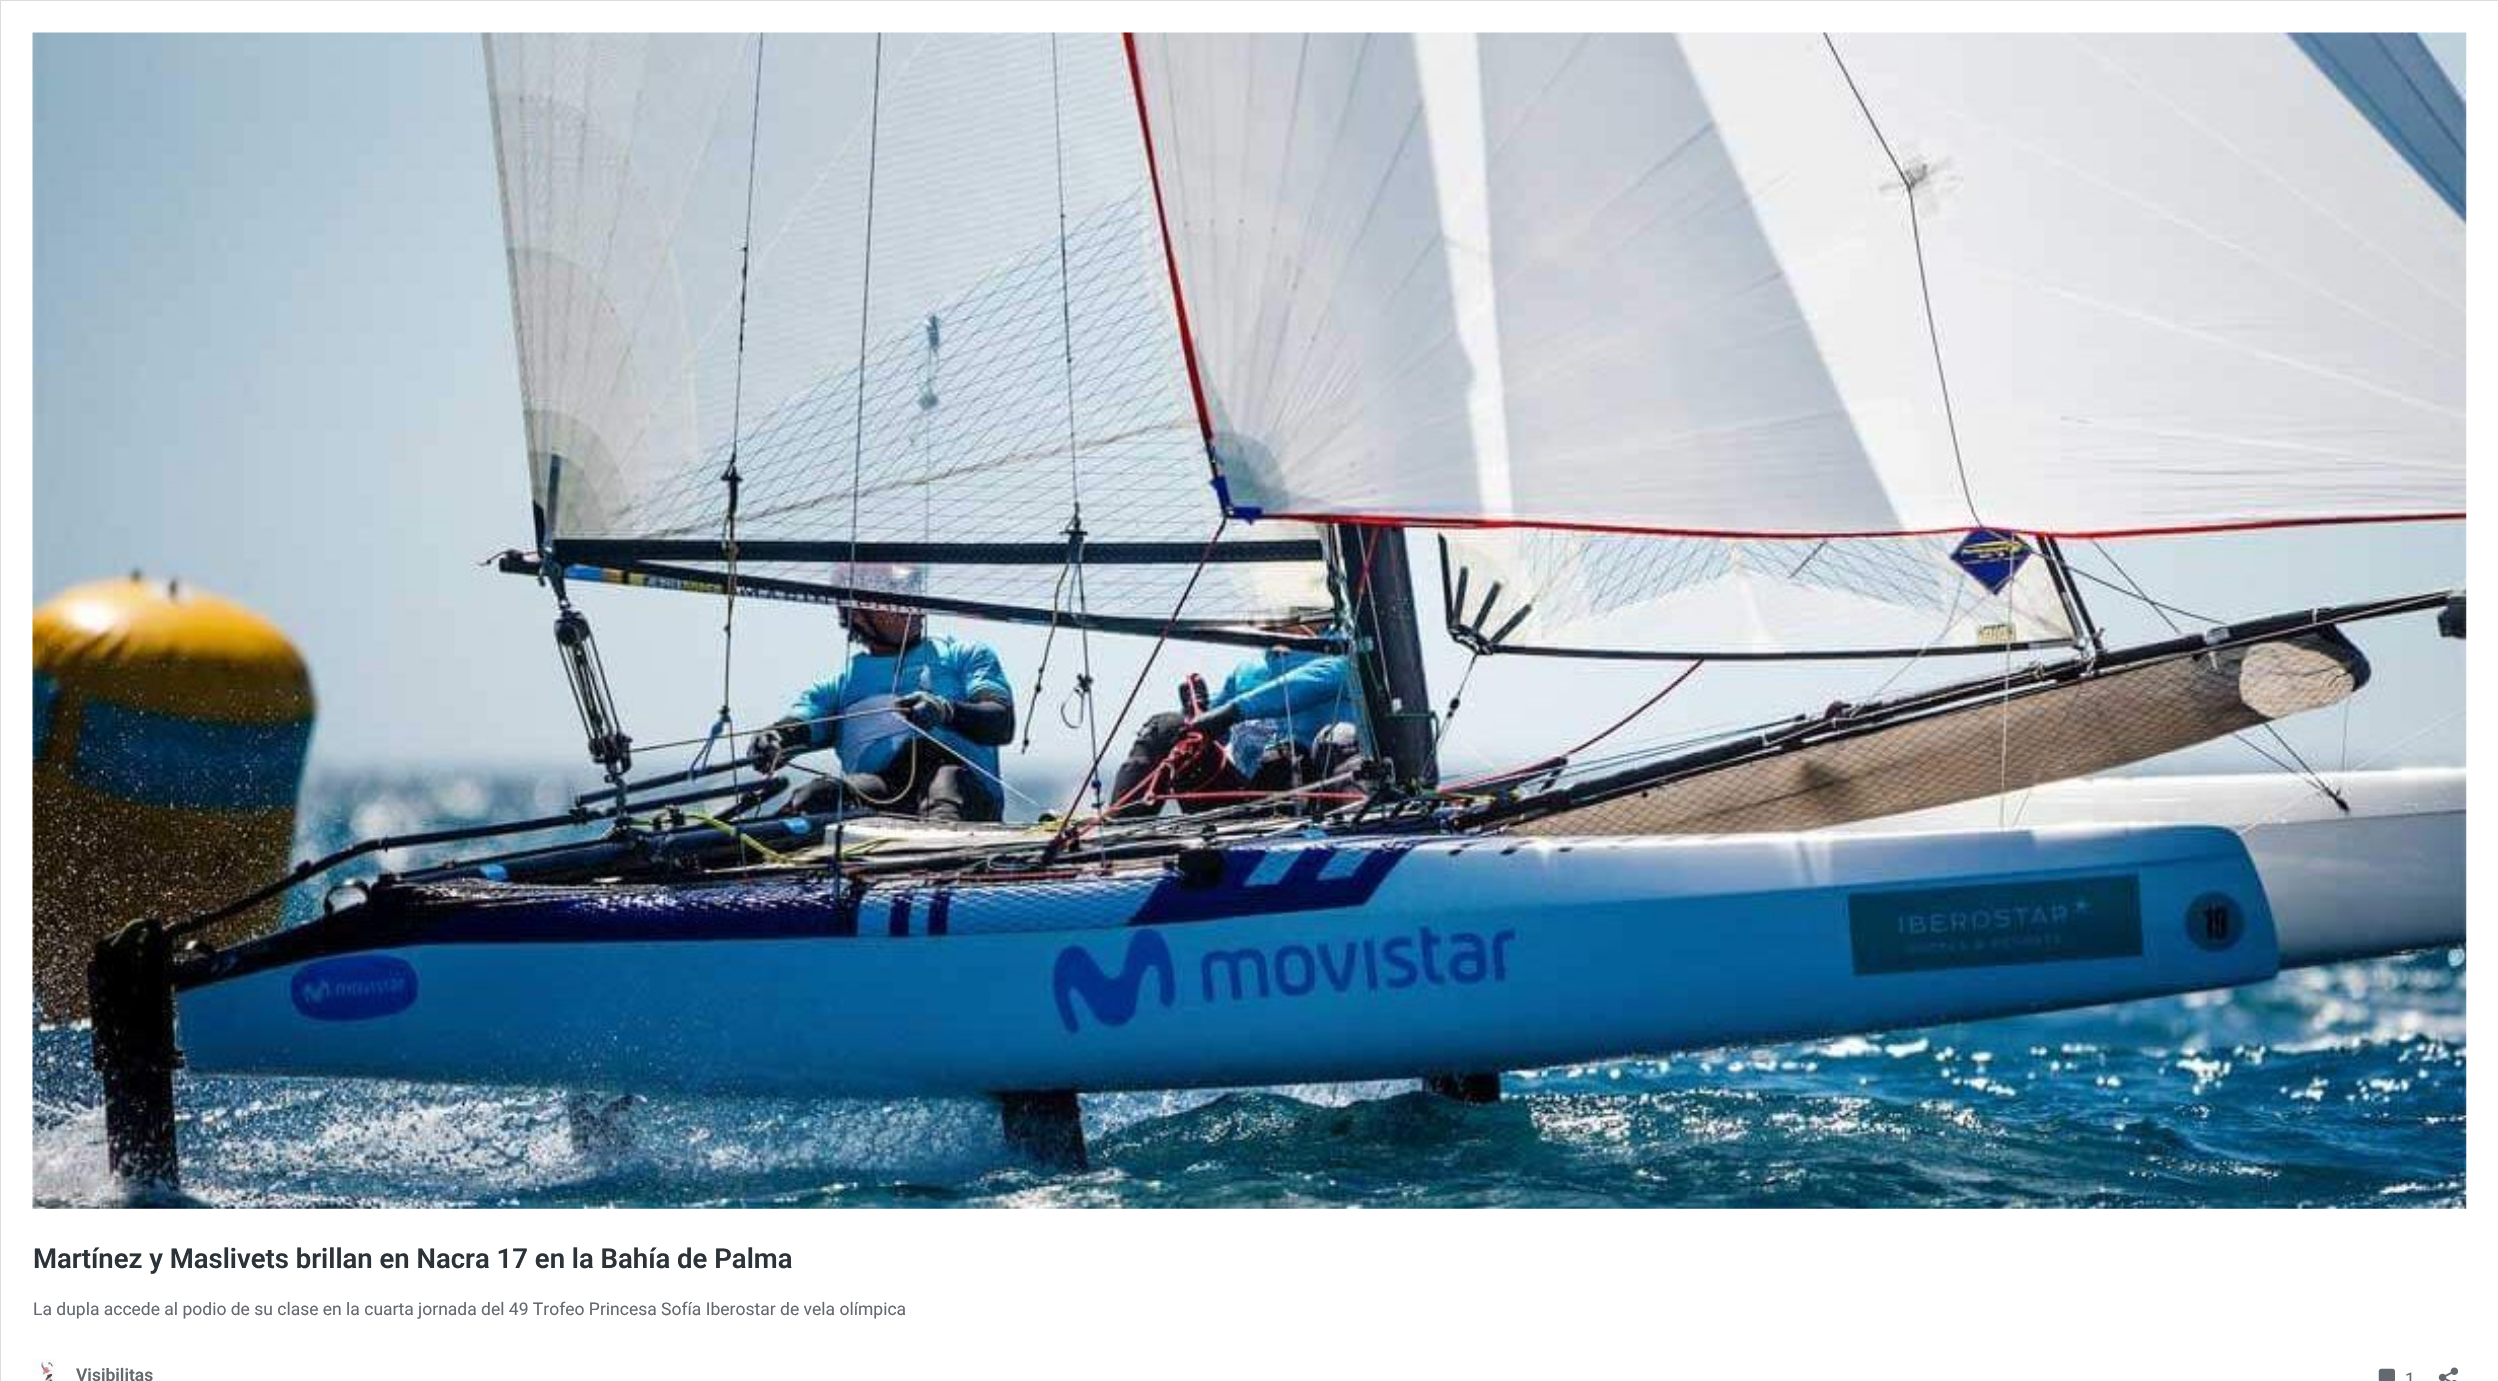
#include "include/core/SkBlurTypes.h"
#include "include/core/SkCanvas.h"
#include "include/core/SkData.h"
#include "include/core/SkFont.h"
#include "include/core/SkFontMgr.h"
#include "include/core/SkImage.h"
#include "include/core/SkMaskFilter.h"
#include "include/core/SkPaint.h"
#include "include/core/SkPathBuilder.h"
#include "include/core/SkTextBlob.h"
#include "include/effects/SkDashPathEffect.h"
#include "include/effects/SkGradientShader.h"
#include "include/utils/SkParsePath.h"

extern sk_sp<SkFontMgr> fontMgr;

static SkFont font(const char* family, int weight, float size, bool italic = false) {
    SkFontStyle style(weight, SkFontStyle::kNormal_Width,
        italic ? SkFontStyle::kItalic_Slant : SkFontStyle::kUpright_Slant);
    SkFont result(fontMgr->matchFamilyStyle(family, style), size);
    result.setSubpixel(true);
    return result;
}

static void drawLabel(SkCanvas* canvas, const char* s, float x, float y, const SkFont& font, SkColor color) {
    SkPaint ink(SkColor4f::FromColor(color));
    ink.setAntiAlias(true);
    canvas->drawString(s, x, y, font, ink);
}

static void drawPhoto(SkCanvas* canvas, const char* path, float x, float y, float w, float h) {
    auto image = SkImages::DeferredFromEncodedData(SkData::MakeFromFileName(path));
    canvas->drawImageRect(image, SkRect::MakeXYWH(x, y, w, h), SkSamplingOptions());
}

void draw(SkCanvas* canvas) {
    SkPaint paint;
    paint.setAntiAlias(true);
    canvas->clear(0xFFFFFFFF);
    paint.setStroke(true);
    paint.setStrokeWidth(1);
    paint.setColor(0xFFDCDCDE);
    canvas->drawRect(SkRect::MakeXYWH(0.5f, 0.5f, 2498, 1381), paint);
    drawPhoto(canvas, "assets/img1.png", 32, 32, 2435, 1177);
    SkFont font1 = font("Roboto", 600, 27.5f);
    drawLabel(canvas, "Martínez y Maslivets brillan en Nacra 17 en la Bahía de Palma", 33, 1268, font1, 0xFF2C3338);
    SkFont font2 = font("Roboto", 400, 17.5f);
    drawLabel(canvas, "La dupla accede al podio de su clase en la cuarta jornada del 49 Trofeo Princesa Sofía Iberostar de vela olímpica", 33, 1315, font2, 0xFF646970);
    drawPhoto(canvas, "assets/img2.png", 32, 1359, 24, 22);
    SkFont font3 = font("Roboto", 600, 17.5f);
    drawLabel(canvas, "Visibilitas", 76, 1381, font3, 0xFF646970);
    drawPhoto(canvas, "assets/img3.png", 2378, 1368, 17, 13);
    drawLabel(canvas, "1", 2405, 1385, font2, 0xFF646970);
    drawPhoto(canvas, "assets/img4.png", 2438, 1367, 21, 14);
}
